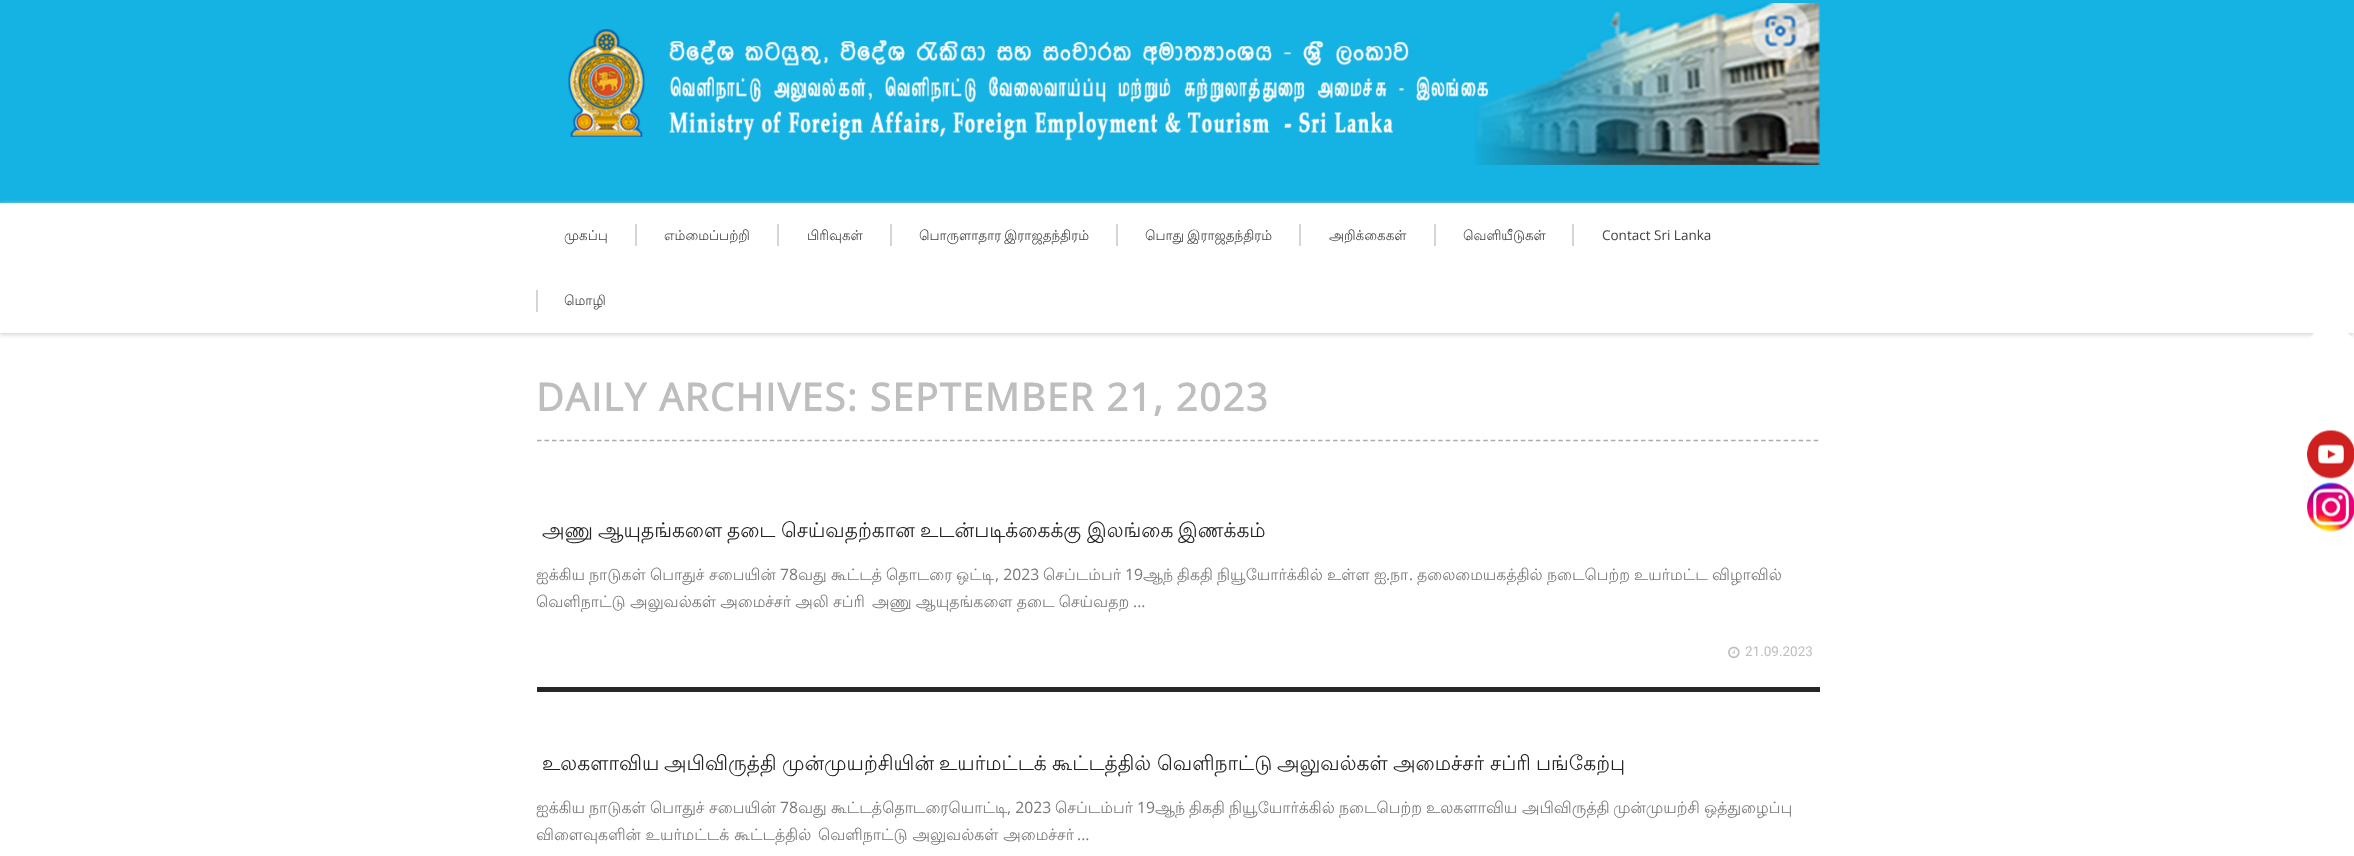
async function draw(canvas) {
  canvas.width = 2354;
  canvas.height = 856;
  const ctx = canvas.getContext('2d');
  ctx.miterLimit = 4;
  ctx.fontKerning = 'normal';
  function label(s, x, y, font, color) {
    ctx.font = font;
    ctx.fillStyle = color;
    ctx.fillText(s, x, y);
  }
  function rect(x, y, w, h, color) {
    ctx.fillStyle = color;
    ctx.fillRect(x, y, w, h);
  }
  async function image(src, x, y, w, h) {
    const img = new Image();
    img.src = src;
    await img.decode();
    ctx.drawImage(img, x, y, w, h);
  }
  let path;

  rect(0, 0, 2354, 856, '#fff');
  rect(0, 0, 2354, 203, '#14b3e3');
  await image('assets/img1.png', 568, 3, 1252, 162);
  ctx.fillStyle = '#d8d8d8';
  ctx.filter = 'blur(2px)';
  ctx.beginPath();
  ctx.rect(0, 204, 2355, 131);
  ctx.fill();
  ctx.filter = 'none';
  rect(0, 203, 2354, 130, '#fff');
  label('முகப்பு', 564, 240, '13.5px Lohit Tamil', '#424246');
  rect(635, 224, 2, 22, '#d5d5d6');
  label('எம்மைப்பற்றி', 664, 240, '13.5px Lohit Tamil', '#424246');
  rect(777, 224, 2, 22, '#d5d5d6');
  label('பிரிவுகள்', 807, 240, '13.5px Lohit Tamil', '#424246');
  rect(890, 224, 2, 22, '#d5d5d6');
  ctx.wordSpacing = '-1px';
  label('பொருளாதார இராஜதந்திரம்', 919, 240, '13.5px Lohit Tamil', '#424246');
  rect(1116, 224, 2, 22, '#d5d5d6');
  label('பொது இராஜதந்திரம்', 1145, 240, '13.5px Lohit Tamil', '#424246');
  rect(1299, 224, 2, 22, '#d5d5d6');
  ctx.wordSpacing = '0px';
  label('அறிக்கைகள்', 1329, 240, '13.5px Lohit Tamil', '#424246');
  rect(1434, 224, 2, 22, '#d5d5d6');
  label('வெளியீடுகள்', 1463, 240, '13.5px Lohit Tamil', '#424246');
  rect(1572, 224, 2, 22, '#d5d5d6');
  label('Contact Sri Lanka', 1602, 240, '13.5px Open Sans', '#424246');
  rect(536, 290, 2, 22, '#d5d5d6');
  label('மொழி', 564, 305, '13.5px Lohit Tamil', '#424246');
  path = new Path2D('M537 440.5H1819.5');
  ctx.strokeStyle = '#ababab';
  ctx.lineWidth = 1.5;
  ctx.setLineDash([4.5, 3.01]);
  ctx.stroke(path);
  ctx.letterSpacing = '1.5px';
  label('DAILY ARCHIVES: SEPTEMBER 21, 2023', 536, 411, 'bold 38.25px Open Sans', '#bebebe');
  rect(537, 687, 1283, 5, '#262626');
  ctx.letterSpacing = '0px';
  label('அணு', 542, 537, '20.25px Lohit Tamil', '#222');
  label('ஆயுதங்களை', 598, 537, '20.25px Lohit Tamil', '#222');
  label('தடை', 727, 537, '20.25px Lohit Tamil', '#222');
  label('செய்வதற்கான', 781, 537, '20.25px Lohit Tamil', '#222');
  label('உடன்படிக்கைக்கு', 920, 537, '20.25px Lohit Tamil', '#222');
  label('இலங்கை', 1087, 537, '20.25px Lohit Tamil', '#222');
  label('இணக்கம்', 1178, 537, '20.25px Lohit Tamil', '#222');
  label('ஐக்கிய', 536, 580, '15.75px Lohit Tamil', '#777');
  label('நாடுகள்', 589, 580, '15.75px Lohit Tamil', '#777');
  label('பொதுச்', 650, 580, '15.75px Lohit Tamil', '#777');
  label('சபையின்', 709, 580, '15.75px Lohit Tamil', '#777');
  label('78', 780, 580, '15.75px Open Sans', '#777');
  label('வது', 798, 580, '15.75px Lohit Tamil', '#777');
  label('கூட்டத்', 831, 580, '15.75px Lohit Tamil', '#777');
  label('தொடரை', 886, 580, '15.75px Lohit Tamil', '#777');
  label('ஒட்டி', 956, 580, '15.75px Lohit Tamil', '#777');
  label(', 2023', 995, 580, '15.75px Open Sans', '#777');
  label('செப்டம்பர்', 1043, 580, '15.75px Lohit Tamil', '#777');
  label('19', 1125, 580, '15.75px Open Sans', '#777');
  label('ஆந்', 1143, 580, '15.75px Lohit Tamil', '#777');
  label('திகதி', 1177, 580, '15.75px Lohit Tamil', '#777');
  label('நியூயோர்க்கில்', 1217, 580, '15.75px Lohit Tamil', '#777');
  label('உள்ள', 1327, 580, '15.75px Lohit Tamil', '#777');
  label('ஐ', 1374, 580, '15.75px Lohit Tamil', '#777');
  label('.', 1386, 580, '15.75px Open Sans', '#777');
  label('நா', 1390, 580, '15.75px Lohit Tamil', '#777');
  label('.', 1409, 580, '15.75px Open Sans', '#777');
  label('தலைமையகத்தில்', 1417, 580, '15.75px Lohit Tamil', '#777');
  label('நடைபெற்ற', 1547, 580, '15.75px Lohit Tamil', '#777');
  label('உயர்மட்ட', 1634, 580, '15.75px Lohit Tamil', '#777');
  label('விழாவில்', 1712, 580, '15.75px Lohit Tamil', '#777');
  ctx.wordSpacing = '-0.5px';
  label('வெளிநாட்டு அலுவல்கள் அமைச்சர் அலி சப்ரி', 536, 607, '15.75px Lohit Tamil', '#777');
  label('அணு ஆயுதங்களை தடை செய்வதற', 872, 607, '15.75px Lohit Tamil', '#777');
  ctx.wordSpacing = '0px';
  label('...', 1133, 607, '15.75px Open Sans', '#777');
  await image('assets/img2.png', 1728, 646, 12, 13);
  label('21.09.2023', 1745, 656, '13.5px Roboto', '#bebebe');
  label('உலகளாவிய', 542, 770, '20.25px Lohit Tamil', '#222');
  label('அபிவிருத்தி', 664, 770, '20.25px Lohit Tamil', '#222');
  label('முன்முயற்சியின்', 782, 770, '20.25px Lohit Tamil', '#222');
  label('உயர்மட்டக்', 939, 770, '20.25px Lohit Tamil', '#222');
  label('கூட்டத்தில்', 1052, 770, '20.25px Lohit Tamil', '#222');
  label('வெளிநாட்டு', 1157, 770, '20.25px Lohit Tamil', '#222');
  label('அலுவல்கள்', 1277, 770, '20.25px Lohit Tamil', '#222');
  label('அமைச்சர்', 1393, 770, '20.25px Lohit Tamil', '#222');
  label('சப்ரி', 1490, 770, '20.25px Lohit Tamil', '#222');
  label('பங்கேற்பு', 1536, 770, '20.25px Lohit Tamil', '#222');
  label('ஐக்கிய', 536, 813, '15.75px Lohit Tamil', '#777');
  label('நாடுகள்', 589, 813, '15.75px Lohit Tamil', '#777');
  label('பொதுச்', 650, 813, '15.75px Lohit Tamil', '#777');
  label('சபையின்', 709, 813, '15.75px Lohit Tamil', '#777');
  label('78', 780, 813, '15.75px Open Sans', '#777');
  label('வது', 798, 813, '15.75px Lohit Tamil', '#777');
  label('கூட்டத்தொடரையொட்டி', 831, 813, '15.75px Lohit Tamil', '#777');
  label(', 2023', 1007, 813, '15.75px Open Sans', '#777');
  label('செப்டம்பர்', 1055, 813, '15.75px Lohit Tamil', '#777');
  label('19', 1137, 813, '15.75px Open Sans', '#777');
  label('ஆந்', 1155, 813, '15.75px Lohit Tamil', '#777');
  label('திகதி', 1189, 813, '15.75px Lohit Tamil', '#777');
  label('நியூயோர்க்கில்', 1229, 813, '15.75px Lohit Tamil', '#777');
  label('நடைபெற்ற', 1339, 813, '15.75px Lohit Tamil', '#777');
  label('உலகளாவிய', 1426, 813, '15.75px Lohit Tamil', '#777');
  label('அபிவிருத்தி', 1522, 813, '15.75px Lohit Tamil', '#777');
  label('முன்முயற்சி', 1613, 813, '15.75px Lohit Tamil', '#777');
  label('ஒத்துழைப்பு', 1704, 813, '15.75px Lohit Tamil', '#777');
  label('விளைவுகளின் உயர்மட்டக் கூட்டத்தில்', 536, 840, '15.75px Lohit Tamil', '#777');
  label('வெளிநாட்டு அலுவல்கள் அமைச்சர்', 818, 840, '15.75px Lohit Tamil', '#777');
  label('...', 1077, 840, '15.75px Open Sans', '#777');
  ctx.fillStyle = '#fff';
  ctx.beginPath();
  ctx.arc(2331, 350, 24, 0, 2 * Math.PI);
  ctx.fill();
  await image('assets/img3.png', 2307, 430, 47, 49);
  await image('assets/img4.png', 2307, 482, 47, 50);
}

draw(document.querySelector('canvas'));
